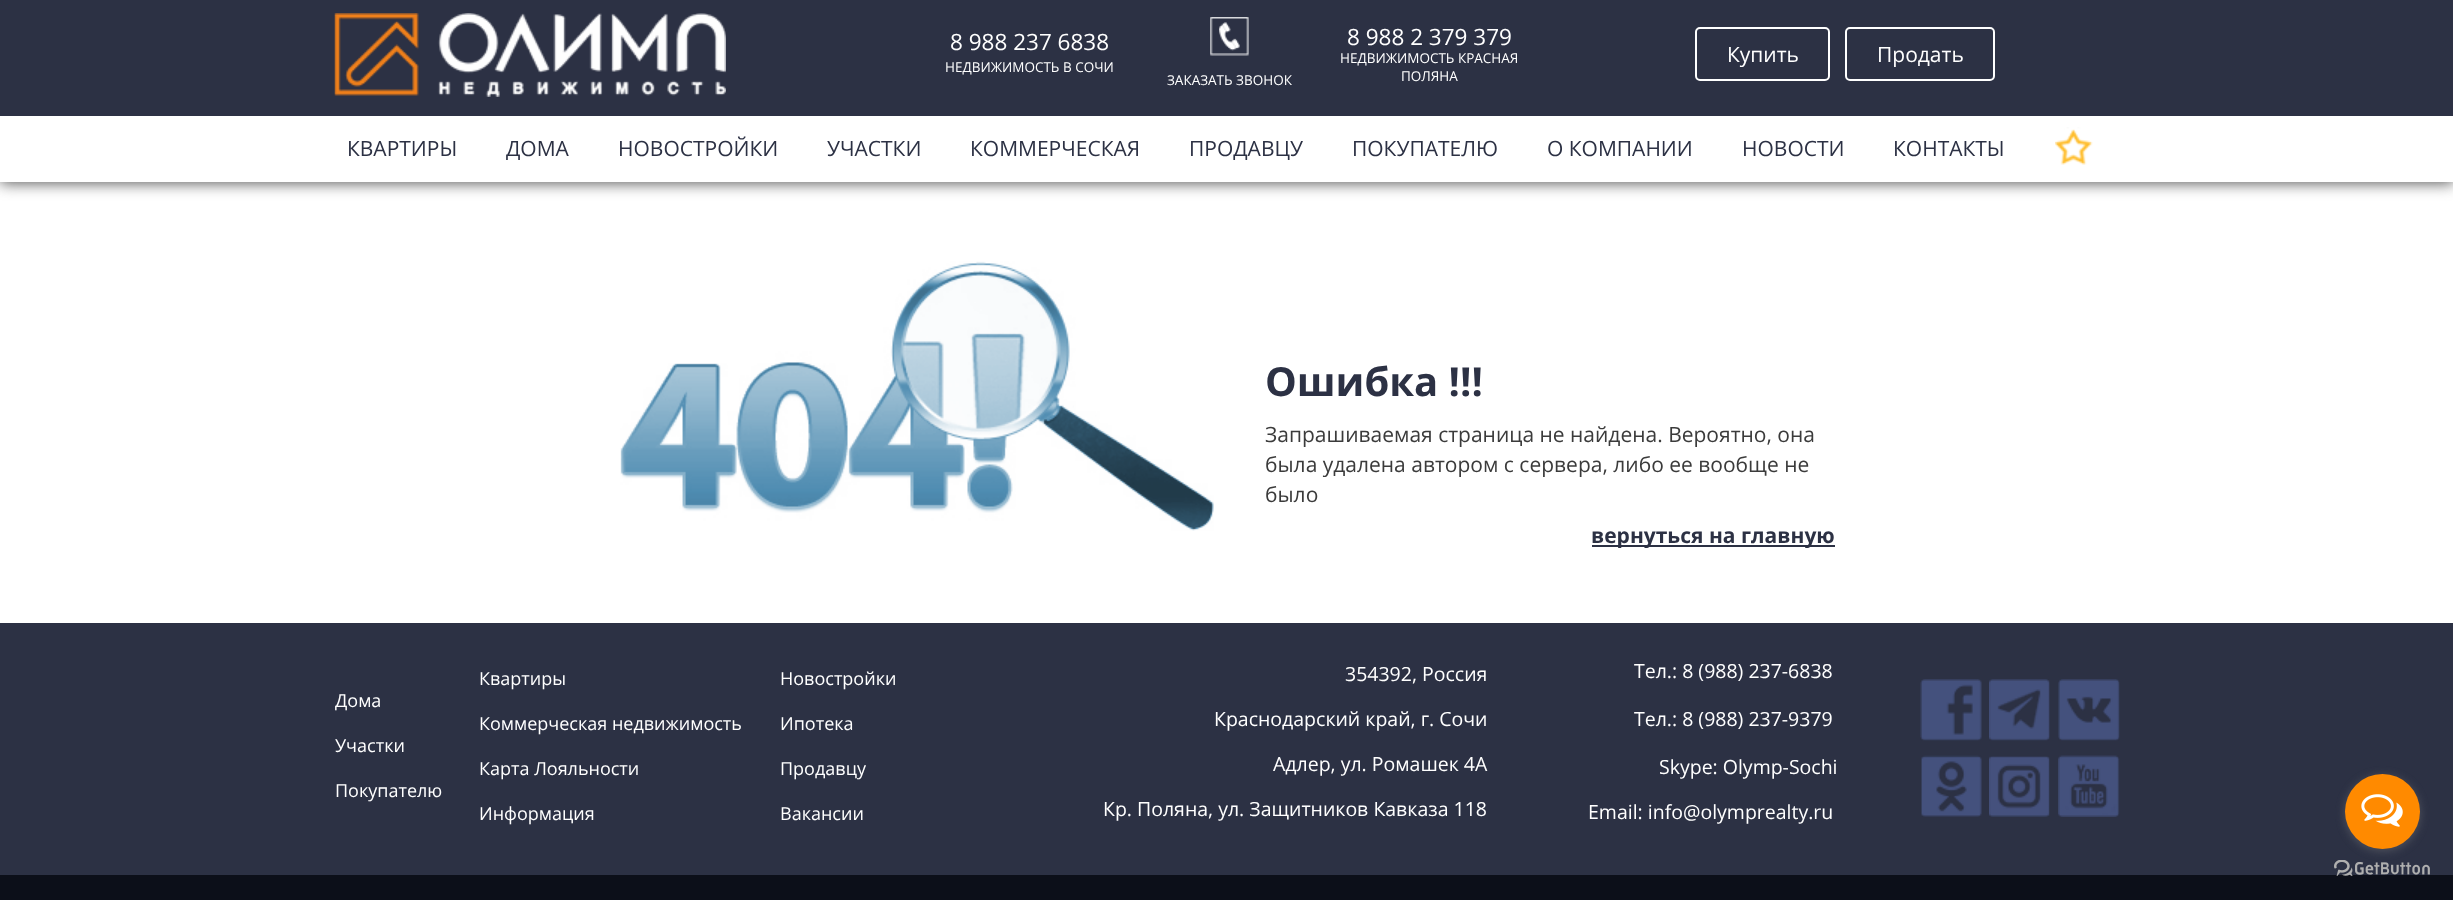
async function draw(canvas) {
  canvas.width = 2453;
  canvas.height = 900;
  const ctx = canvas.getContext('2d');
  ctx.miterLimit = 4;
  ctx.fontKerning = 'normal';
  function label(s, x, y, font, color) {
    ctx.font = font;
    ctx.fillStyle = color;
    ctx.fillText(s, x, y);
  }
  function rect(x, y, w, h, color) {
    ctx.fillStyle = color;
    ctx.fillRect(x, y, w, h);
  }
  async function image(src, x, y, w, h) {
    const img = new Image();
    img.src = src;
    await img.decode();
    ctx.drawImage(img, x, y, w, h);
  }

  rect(0, 0, 2453, 900, '#fff');
  ctx.fillStyle = '#515151';
  ctx.filter = 'blur(7.5px)';
  ctx.beginPath();
  ctx.rect(0, -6, 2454, 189);
  ctx.fill();
  ctx.filter = 'none';
  rect(0, 0, 2453, 116, '#2c3144');
  await image('assets/img1.png', 334, 13, 392, 84);
  label('8 988 237 6838', 950, 50, '22.5px Open Sans', '#fff');
  label('НЕДВИЖИМОСТЬ В СОЧИ', 945, 72, '13.5px Open Sans', '#fff');
  label('8 988 2 379 379', 1347, 45, '22.5px Open Sans', '#fff');
  label('НЕДВИЖИМОСТЬ КРАСНАЯ', 1340, 63, '13.5px Open Sans', '#fff');
  label('ПОЛЯНА', 1401, 81, '13.5px Open Sans', '#fff');
  await image('assets/img2.png', 1210, 17, 39, 39);
  label('ЗАКАЗАТЬ ЗВОНОК', 1167, 85, '13.5px Open Sans', '#fff');
  ctx.beginPath();
  ctx.roundRect(1696, 28, 133, 52, 4);
  ctx.strokeStyle = '#fff';
  ctx.lineWidth = 2;
  ctx.stroke();
  label('Купить', 1727, 62, '21px Open Sans', '#fff');
  ctx.beginPath();
  ctx.roundRect(1846, 28, 148, 52, 4);
  ctx.stroke();
  label('Продать', 1877, 62, '21px Open Sans', '#fff');
  rect(0, 116, 2453, 66, '#fff');
  label('КВАРТИРЫ', 347, 156, '21px Open Sans', '#2c3144');
  label('ДОМА', 506, 156, '21px Open Sans', '#2c3144');
  label('НОВОСТРОЙКИ', 618, 156, '21px Open Sans', '#2c3144');
  label('УЧАСТКИ', 827, 156, '21px Open Sans', '#2c3144');
  label('КОММЕРЧЕСКАЯ', 970, 156, '21px Open Sans', '#2c3144');
  label('ПРОДАВЦУ', 1189, 156, '21px Open Sans', '#2c3144');
  label('ПОКУПАТЕЛЮ', 1352, 156, '21px Open Sans', '#2c3144');
  label('О КОМПАНИИ', 1547, 156, '21px Open Sans', '#2c3144');
  label('НОВОСТИ', 1742, 156, '21px Open Sans', '#2c3144');
  label('КОНТАКТЫ', 1893, 156, '21px Open Sans', '#2c3144');
  await image('assets/img3.png', 2055, 127, 38, 38);
  await image('assets/img4.png', 620, 261, 594, 270);
  label('Ошибка !!!', 1265, 396, 'bold 40px Open Sans', '#2c3144');
  label('Запрашиваемая страница не найдена. Вероятно, она', 1265, 442, '21px Open Sans', '#3b3b3b');
  label('была удалена автором с сервера, либо ее вообще не', 1265, 472, '21px Open Sans', '#3b3b3b');
  label('было', 1265, 502, '21px Open Sans', '#3b3b3b');
  rect(1592, 545, 243, 2, '#2c3144');
  label('вернуться на главную', 1591, 543, 'bold 21px Open Sans', '#2c3144');
  rect(0, 623, 2453, 252, '#2c3144');
  ctx.save();
  ctx.beginPath();
  ctx.rect(335, 623, 1785, 252);
  ctx.clip();
  label('Дома', 335, 707, '18px Open Sans', '#fff');
  ctx.restore();
  label('Участки', 335, 752, '18px Open Sans', '#fff');
  label('Покупателю', 335, 797, '18px Open Sans', '#fff');
  label('Квартиры', 479, 685, '18px Open Sans', '#fff');
  label('Коммерческая недвижимость', 479, 730, '18px Open Sans', '#fff');
  label('Карта Лояльности', 479, 775, '18px Open Sans', '#fff');
  label('Информация', 479, 820, '18px Open Sans', '#fff');
  label('Новостройки', 780, 685, '18px Open Sans', '#fff');
  label('Ипотека', 780, 730, '18px Open Sans', '#fff');
  label('Продавцу', 780, 775, '18px Open Sans', '#fff');
  label('Вакансии', 780, 820, '18px Open Sans', '#fff');
  label('354392, Россия', 1345, 681, '19.5px Open Sans', '#fff');
  label('Краснодарский край, г. Сочи', 1214, 726, '19.5px Open Sans', '#fff');
  label('Адлер, ул. Ромашек 4А', 1273, 771, '19.5px Open Sans', '#fff');
  label('Кр. Поляна, ул. Защитников Кавказа 118', 1103, 816, '19.5px Open Sans', '#fff');
  label('Тел.: 8 (988) 237-6838', 1634, 678, '19.5px Open Sans', '#fff');
  label('Тел.: 8 (988) 237-9379', 1634, 726, '19.5px Open Sans', '#fff');
  label('Skype: Olymp-Sochi', 1659, 774, '19.5px Open Sans', '#fff');
  label('Email: info@olymprealty.ru', 1588, 819, '19.5px Open Sans', '#fff');
  await image('assets/img5.png', 1920, 679, 62, 62);
  await image('assets/img6.png', 1989, 679, 61, 62);
  await image('assets/img7.png', 2058, 679, 62, 62);
  await image('assets/img8.png', 1921, 755, 61, 62);
  await image('assets/img9.png', 1989, 756, 61, 61);
  await image('assets/img10.png', 2058, 755, 62, 62);
  rect(0, 875, 2453, 25, '#0c0f19');
  await image('assets/img12.png', 2334, 860, 96, 16);
  ctx.fillStyle = '#88888866';
  ctx.filter = 'blur(5px)';
  ctx.beginPath();
  ctx.roundRect(2345, 776, 75, 75, 37.5);
  ctx.fill();
  ctx.filter = 'none';
  ctx.fillStyle = '#ff8a00';
  ctx.beginPath();
  ctx.arc(2382.5, 811.5, 37.5, 0, 2 * Math.PI);
  ctx.fill();
  await image('assets/img11.png', 2361, 794, 42, 33);
}

draw(document.querySelector('canvas'));
